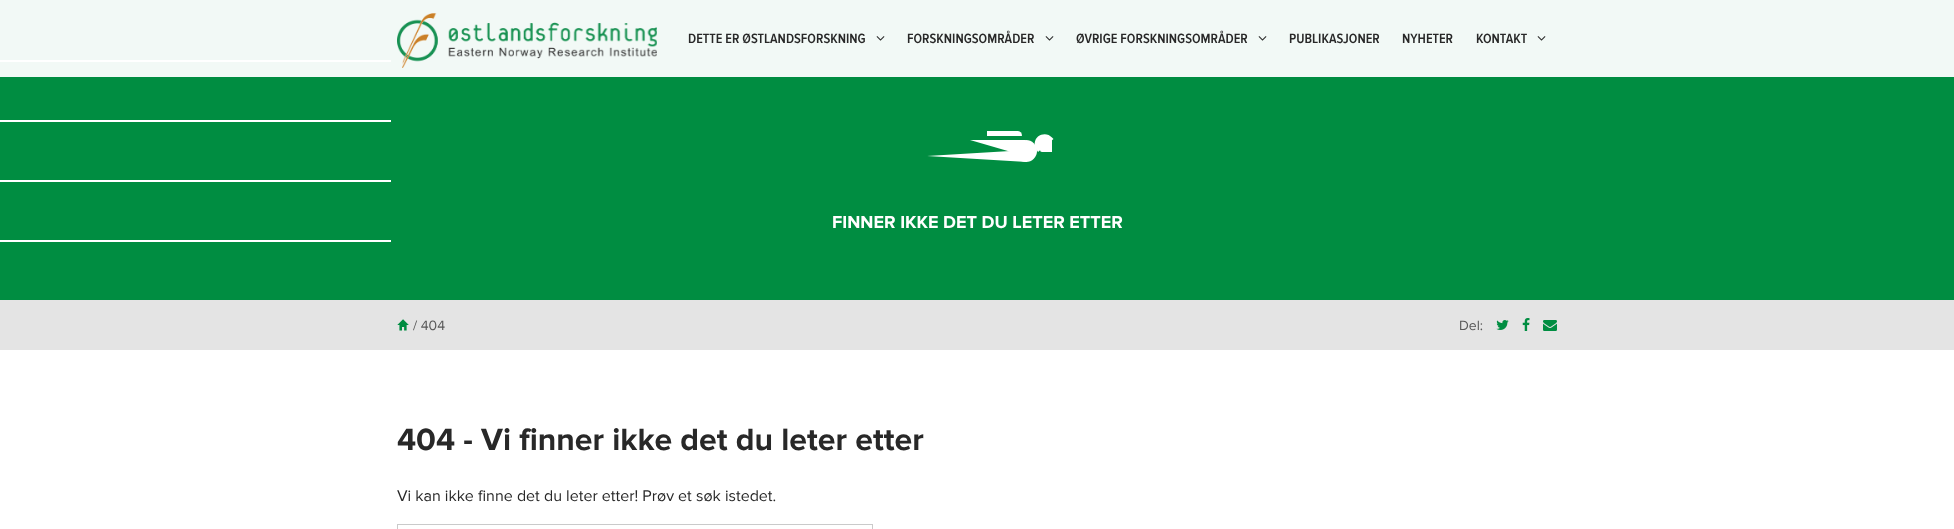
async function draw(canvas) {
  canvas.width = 1954;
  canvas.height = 529;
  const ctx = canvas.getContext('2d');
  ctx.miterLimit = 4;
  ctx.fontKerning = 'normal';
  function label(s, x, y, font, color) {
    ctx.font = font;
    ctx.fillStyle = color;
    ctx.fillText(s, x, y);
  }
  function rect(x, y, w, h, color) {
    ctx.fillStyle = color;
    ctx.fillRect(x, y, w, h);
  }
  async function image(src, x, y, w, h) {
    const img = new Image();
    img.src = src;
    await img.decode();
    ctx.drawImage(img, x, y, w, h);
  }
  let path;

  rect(0, 0, 1954, 529, '#fff');
  rect(0, 0, 1954, 77, '#f2f9f6');
  await image('assets/img1.png', 397, 13, 260, 55);
  label('DETTE ER ØSTLANDSFORSKNING', 688, 43, '600 14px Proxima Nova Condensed', '#282828');
  await image('assets/img2.png', 876, 36, 9, 5);
  label('FORSKNINGSOMRÅDER', 907, 43, '600 14px Proxima Nova Condensed', '#282828');
  await image('assets/img2.png', 1045, 36, 9, 5);
  label('ØVRIGE FORSKNINGSOMRÅDER', 1076, 43, '600 14px Proxima Nova Condensed', '#282828');
  await image('assets/img2.png', 1258, 36, 9, 5);
  label('PUBLIKASJONER', 1289, 43, '600 14px Proxima Nova Condensed', '#282828');
  label('NYHETER', 1402, 43, '600 14px Proxima Nova Condensed', '#282828');
  label('KONTAKT', 1476, 43, '600 14px Proxima Nova Condensed', '#282828');
  await image('assets/img2.png', 1537, 36, 9, 5);
  rect(0, 77, 1954, 223, '#008d41');
  rect(0, 60, 391, 2, '#fff');
  rect(0, 120, 391, 2, '#fff');
  rect(0, 180, 391, 2, '#fff');
  rect(0, 240, 391, 2, '#fff');
  ctx.beginPath();
  ctx.roundRect(987, 131, 35, 5, [0.91, 4.55, 0.45, 0]);
  ctx.fill();
  rect(987, 131, 1, 1, '#fff');
  path = new Path2D('M1027 150V162L927 156Z');
  ctx.fill(path);
  path = new Path2D('M1025 140V156L970 140Z');
  ctx.fill(path);
  ctx.beginPath();
  ctx.arc(1026, 151, 11, 0, 2 * Math.PI);
  ctx.fill();
  path = new Path2D('M1038 136.5C1042.5 133 1048.5 133.5 1052 137.5L1053.5 139L1038 152L1037 150.5C1033.5 146.5 1034 140 1038 136.5Z');
  ctx.fill(path);
  ctx.beginPath();
  ctx.roundRect(1040, 140, 12, 12, [0, 0, 0, 2]);
  ctx.fill();
  label('FINNER IKKE DET DU LETER ETTER', 832, 228, 'bold 18px Proxima Nova', '#fff');
  rect(0, 300, 1954, 50, '#e4e4e4');
  label('H', 397, 329, '14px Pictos', '#008d41');
  label('/ 404', 413, 330, '14px Proxima Nova', '#585858');
  label('Del:', 1459, 330, '14px Proxima Nova', '#585858');
  await image('assets/img3.png', 1496, 320, 13, 10);
  await image('assets/img4.png', 1522, 318, 8, 13);
  await image('assets/img5.png', 1543, 320, 14, 11);
  label('404 - Vi finner ikke det du leter etter', 397, 450, 'bold 32px Proxima Nova', '#282828');
  label('Vi kan ikke finne det du leter etter! Prøv et søk istedet.', 397, 501, '16px Proxima Nova', '#282828');
  ctx.strokeStyle = '#cacaca';
  ctx.strokeRect(397.5, 524.5, 475, 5);
}

draw(document.querySelector('canvas'));
